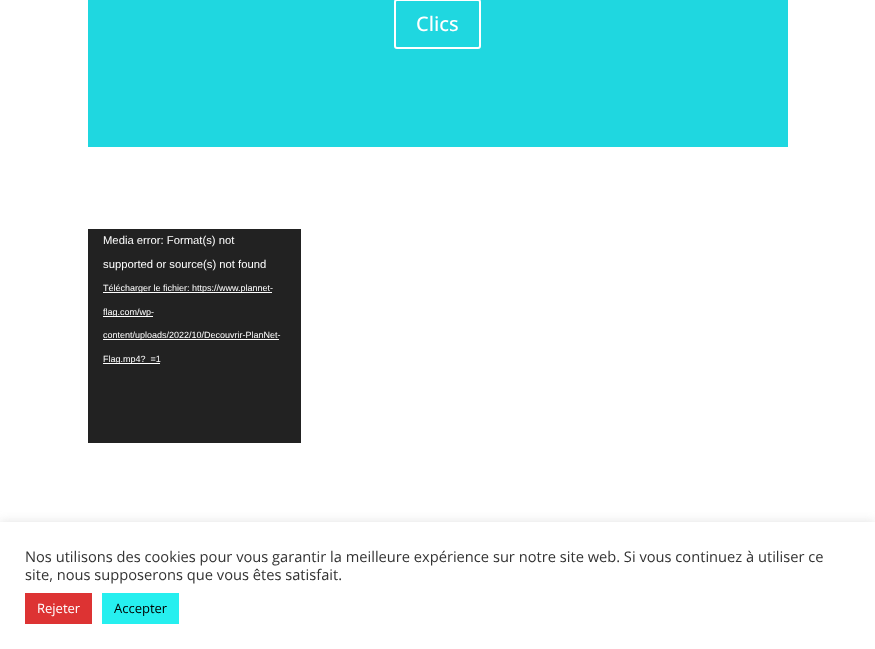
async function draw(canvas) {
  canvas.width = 875;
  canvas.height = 649;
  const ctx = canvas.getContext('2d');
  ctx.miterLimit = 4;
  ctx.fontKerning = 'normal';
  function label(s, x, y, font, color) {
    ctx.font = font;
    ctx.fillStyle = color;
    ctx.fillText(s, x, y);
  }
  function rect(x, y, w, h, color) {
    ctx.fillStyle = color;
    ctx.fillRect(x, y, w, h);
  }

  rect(0, 0, 875, 649, '#fff');
  rect(88, 0, 700, 147, '#1fd7e0');
  ctx.beginPath();
  ctx.roundRect(395, 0, 85, 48, 2);
  ctx.strokeStyle = '#fff';
  ctx.lineWidth = 2;
  ctx.stroke();
  label('Clics', 416, 31, '500 20px Open Sans', '#fff');
  rect(88, 229, 213, 214, '#222');
  label('Media error: Format(s) not', 103, 244, '11.25px Liberation Sans', '#fff');
  label('supported or source(s) not found', 103, 268, '11.25px Liberation Sans', '#fff');
  rect(103, 292, 169, 1, '#fff');
  label('Télécharger le fichier: https://www.plannet-', 103, 291, '9px Liberation Sans', '#fff');
  rect(103, 316, 50, 1, '#fff');
  label('flag.com/wp-', 103, 315, '9px Liberation Sans', '#fff');
  rect(103, 339, 176, 1, '#fff');
  label('content/uploads/2022/10/Decouvrir-PlanNet-', 103, 338, '9px Liberation Sans', '#fff');
  rect(103, 363, 57, 1, '#fff');
  label('Flag.mp4?_=1', 103, 362, '9px Liberation Sans', '#fff');
  ctx.fillStyle = '#acabab4d';
  ctx.filter = 'blur(5px)';
  ctx.beginPath();
  ctx.rect(0, 521, 875, 127);
  ctx.fill();
  ctx.filter = 'none';
  rect(0, 522, 875, 127, '#fff');
  label('Nos utilisons des cookies pour vous garantir la meilleure expérience sur notre site web. Si vous continuez à utiliser ce', 25, 562, '14.67px Open Sans', '#333');
  label('site, nous supposerons que vous êtes satisfait.', 25, 580, '14.67px Open Sans', '#333');
  rect(25, 593, 67, 31, '#d33');
  label('Rejeter', 37, 613, '13px Open Sans', '#fff');
  rect(102, 593, 77, 31, '#26efef');
  label('Accepter', 114, 613, '13px Open Sans', '#000');
}

draw(document.querySelector('canvas'));
